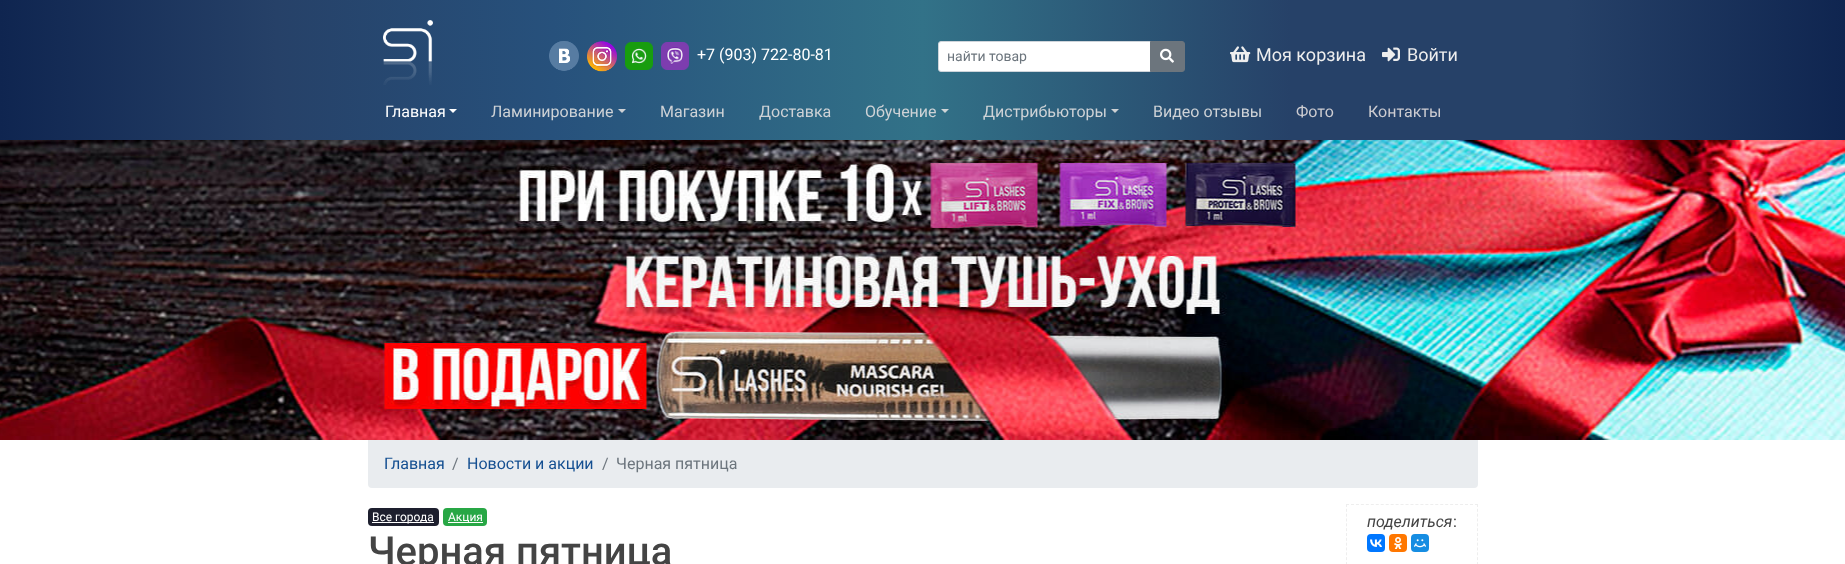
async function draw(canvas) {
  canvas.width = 1845;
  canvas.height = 564;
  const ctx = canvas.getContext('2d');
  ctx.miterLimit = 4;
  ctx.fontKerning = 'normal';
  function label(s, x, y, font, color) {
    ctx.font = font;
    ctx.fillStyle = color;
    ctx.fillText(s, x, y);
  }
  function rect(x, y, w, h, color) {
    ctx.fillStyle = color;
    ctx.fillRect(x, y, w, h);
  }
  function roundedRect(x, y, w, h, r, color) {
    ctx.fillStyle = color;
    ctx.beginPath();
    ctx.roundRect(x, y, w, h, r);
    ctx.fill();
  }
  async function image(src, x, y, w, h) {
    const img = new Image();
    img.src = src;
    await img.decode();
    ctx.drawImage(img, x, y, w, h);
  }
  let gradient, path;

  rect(0, 0, 1845, 564, '#fff');
  gradient = ctx.createLinearGradient(0, 70, 1845, 70);
  gradient.addColorStop(0, '#0f2550');
  gradient.addColorStop(0.15, '#264168');
  gradient.addColorStop(0.3, '#27517c');
  gradient.addColorStop(0.5, '#327288');
  gradient.addColorStop(0.7, '#264168');
  gradient.addColorStop(0.85, '#264168');
  gradient.addColorStop(1, '#0f2550');
  ctx.fillStyle = gradient;
  ctx.fillRect(0, 0, 1845, 140);
  await image('assets/img1.png', 383, 20, 50, 65);
  await image('assets/img2.png', 549, 41, 30, 30);
  await image('assets/img3.png', 587, 41, 30, 31);
  await image('assets/img4.png', 625, 42, 28, 28);
  await image('assets/img5.png', 661, 42, 28, 28);
  label('+7 (903) 722-80-81', 697, 60, '16px Roboto', '#fff');
  ctx.beginPath();
  ctx.roundRect(938.5, 41.5, 212, 30, [2.5, 0, 0, 2.5]);
  ctx.fill();
  ctx.strokeStyle = '#ced4da';
  ctx.stroke();
  label('найти товар', 947, 61, '14px Roboto', '#6c757d');
  ctx.beginPath();
  ctx.roundRect(1150.5, 41.5, 34, 30, [0, 2.5, 2.5, 0]);
  ctx.fill();
  ctx.strokeStyle = '#6c757d';
  ctx.stroke();
  await image('assets/img6.png', 1160, 48, 14, 15);
  await image('assets/img7.png', 1230, 46, 21, 17);
  label('Моя корзина', 1256, 61, '18px Roboto', '#eee');
  await image('assets/img8.png', 1382, 47, 18, 15);
  label('Войти', 1407, 61, '18px Roboto', '#eee');
  label('Главная', 385, 117, '16px Roboto', '#fff');
  path = new Path2D('M449 109H457L453 113Z');
  ctx.fill(path);
  label('Ламинирование', 491, 117, '16px Roboto', '#ced2d6');
  ctx.fillStyle = '#ced1d5';
  path = new Path2D('M618 109H626L622 113Z');
  ctx.fill(path);
  label('Магазин', 660, 117, '16px Roboto', '#ced2d6');
  label('Доставка', 759, 117, '16px Roboto', '#ced2d6');
  label('Обучение', 865, 117, '16px Roboto', '#ced2d6');
  ctx.fillStyle = '#cfd5d7';
  path = new Path2D('M941 109H949L945 113Z');
  ctx.fill(path);
  label('Дистрибьюторы', 983, 117, '16px Roboto', '#ced2d6');
  ctx.fillStyle = '#ced1d4';
  path = new Path2D('M1111 109H1119L1115 113Z');
  ctx.fill(path);
  label('Видео отзывы', 1153, 117, '16px Roboto', '#ced2d6');
  label('Фото', 1296, 117, '16px Roboto', '#cdccd1');
  label('Контакты', 1368, 117, '16px Roboto', '#cdccd1');
  await image('assets/img9.png', 0, 140, 1845, 300);
  ctx.fillStyle = '#e9ecef';
  ctx.beginPath();
  ctx.roundRect(368, 440, 1110, 48, [0, 0, 4, 4]);
  ctx.fill();
  label('Главная', 384, 469, '16px Roboto', '#144f91');
  label('/', 452, 469, '16px Roboto', '#6c757d');
  label('Новости и акции', 467, 469, '16px Roboto', '#144f91');
  label('/', 602, 469, '16px Roboto', '#6c757d');
  label('Черная пятница', 616, 469, '16px Roboto', '#6c757d');
  roundedRect(368, 508, 71, 18, 4, '#1d1f2e');
  rect(372, 522, 62, 1, '#fff');
  label('Все города', 372, 521, '12px Roboto', '#fff');
  roundedRect(443, 508, 44, 18, 4, '#28a745');
  rect(448, 522, 35, 1, '#fff');
  label('Акция', 448, 521, '12px Roboto', '#fff');
  path = new Path2D('M1346 504.5H1478');
  ctx.strokeStyle = '#eee';
  ctx.setLineDash([3, 1.96]);
  ctx.stroke(path);
  path = new Path2D('M1477.5 504V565');
  ctx.setLineDash([3, 1.83]);
  ctx.stroke(path);
  path = new Path2D('M1346.5 504V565');
  ctx.stroke(path);
  label('поделиться', 1367, 527, 'italic 16px Roboto', '#444');
  label(':', 1453, 527, '16px Roboto', '#444');
  roundedRect(1367, 534, 18, 18, 4, '#07f');
  await image('assets/img10.png', 1370, 539, 12, 8);
  roundedRect(1389, 534, 18, 18, 4, '#f70');
  await image('assets/img11.png', 1394, 537, 8, 12);
  roundedRect(1411, 534, 18, 18, 4, '#168de2');
  await image('assets/img12.png', 1414, 539, 12, 9);
  label('Черная пятница', 368, 565, '500 40px Roboto', '#444');
}

draw(document.querySelector('canvas'));
